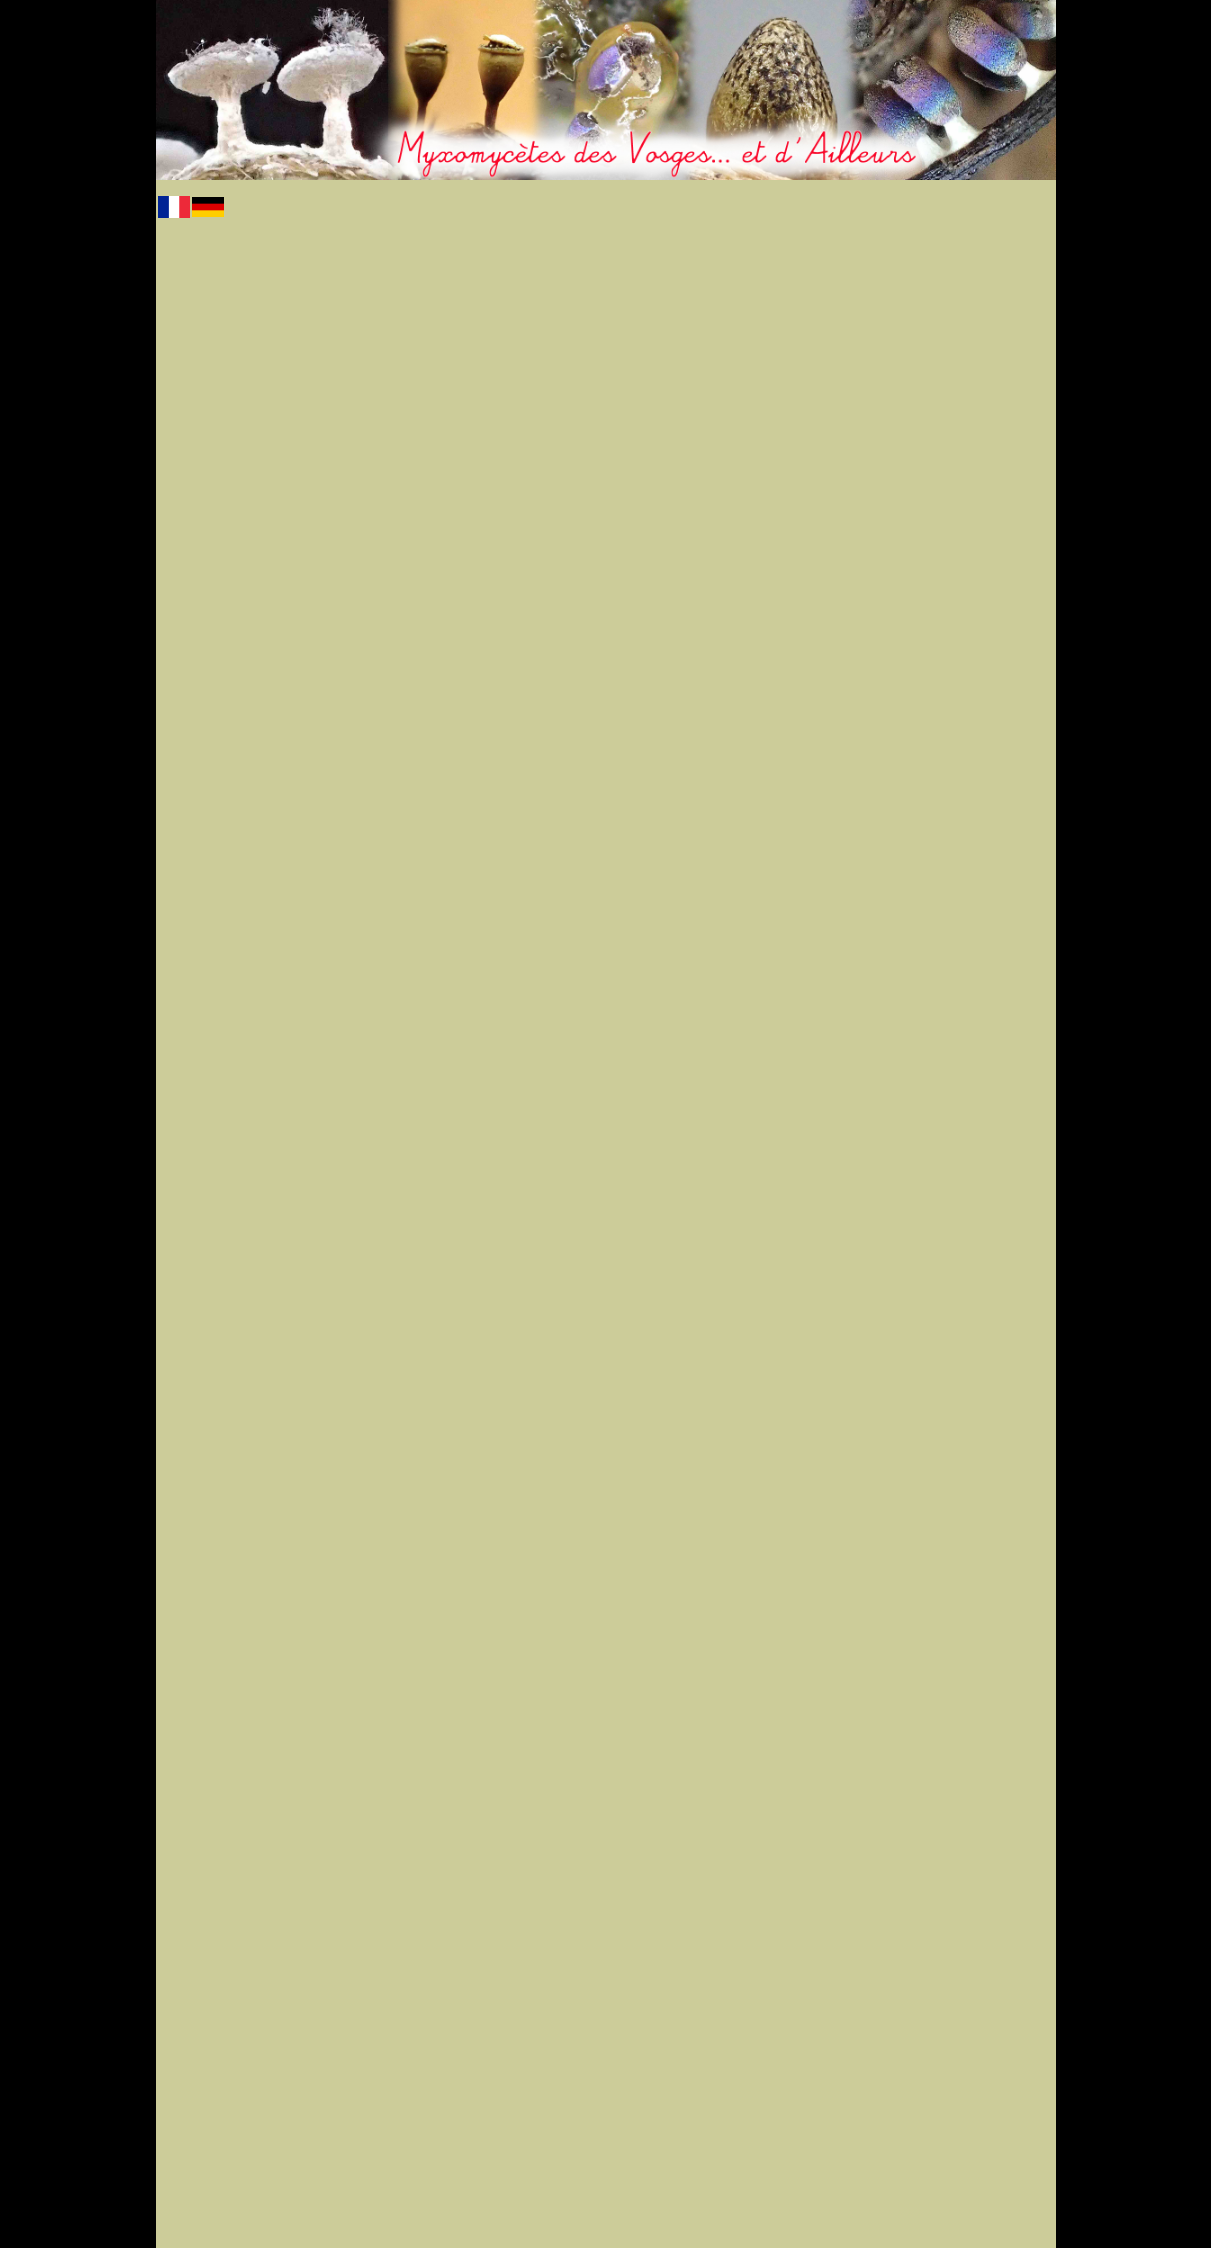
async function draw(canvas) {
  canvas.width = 1211;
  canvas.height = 2248;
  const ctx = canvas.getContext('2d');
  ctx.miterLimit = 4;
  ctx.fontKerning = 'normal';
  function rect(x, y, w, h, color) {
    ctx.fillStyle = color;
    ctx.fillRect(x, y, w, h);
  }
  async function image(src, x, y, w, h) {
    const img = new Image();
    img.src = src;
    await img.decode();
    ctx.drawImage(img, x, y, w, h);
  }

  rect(0, 0, 1211, 2248, '#000');
  rect(156, 180, 900, 2068, '#cc9');
  await image('assets/img1.png', 156, 0, 900, 180);
  await image('assets/img2.png', 158, 196, 32, 22);
  await image('assets/img3.png', 192, 197, 32, 20);
}

draw(document.querySelector('canvas'));
